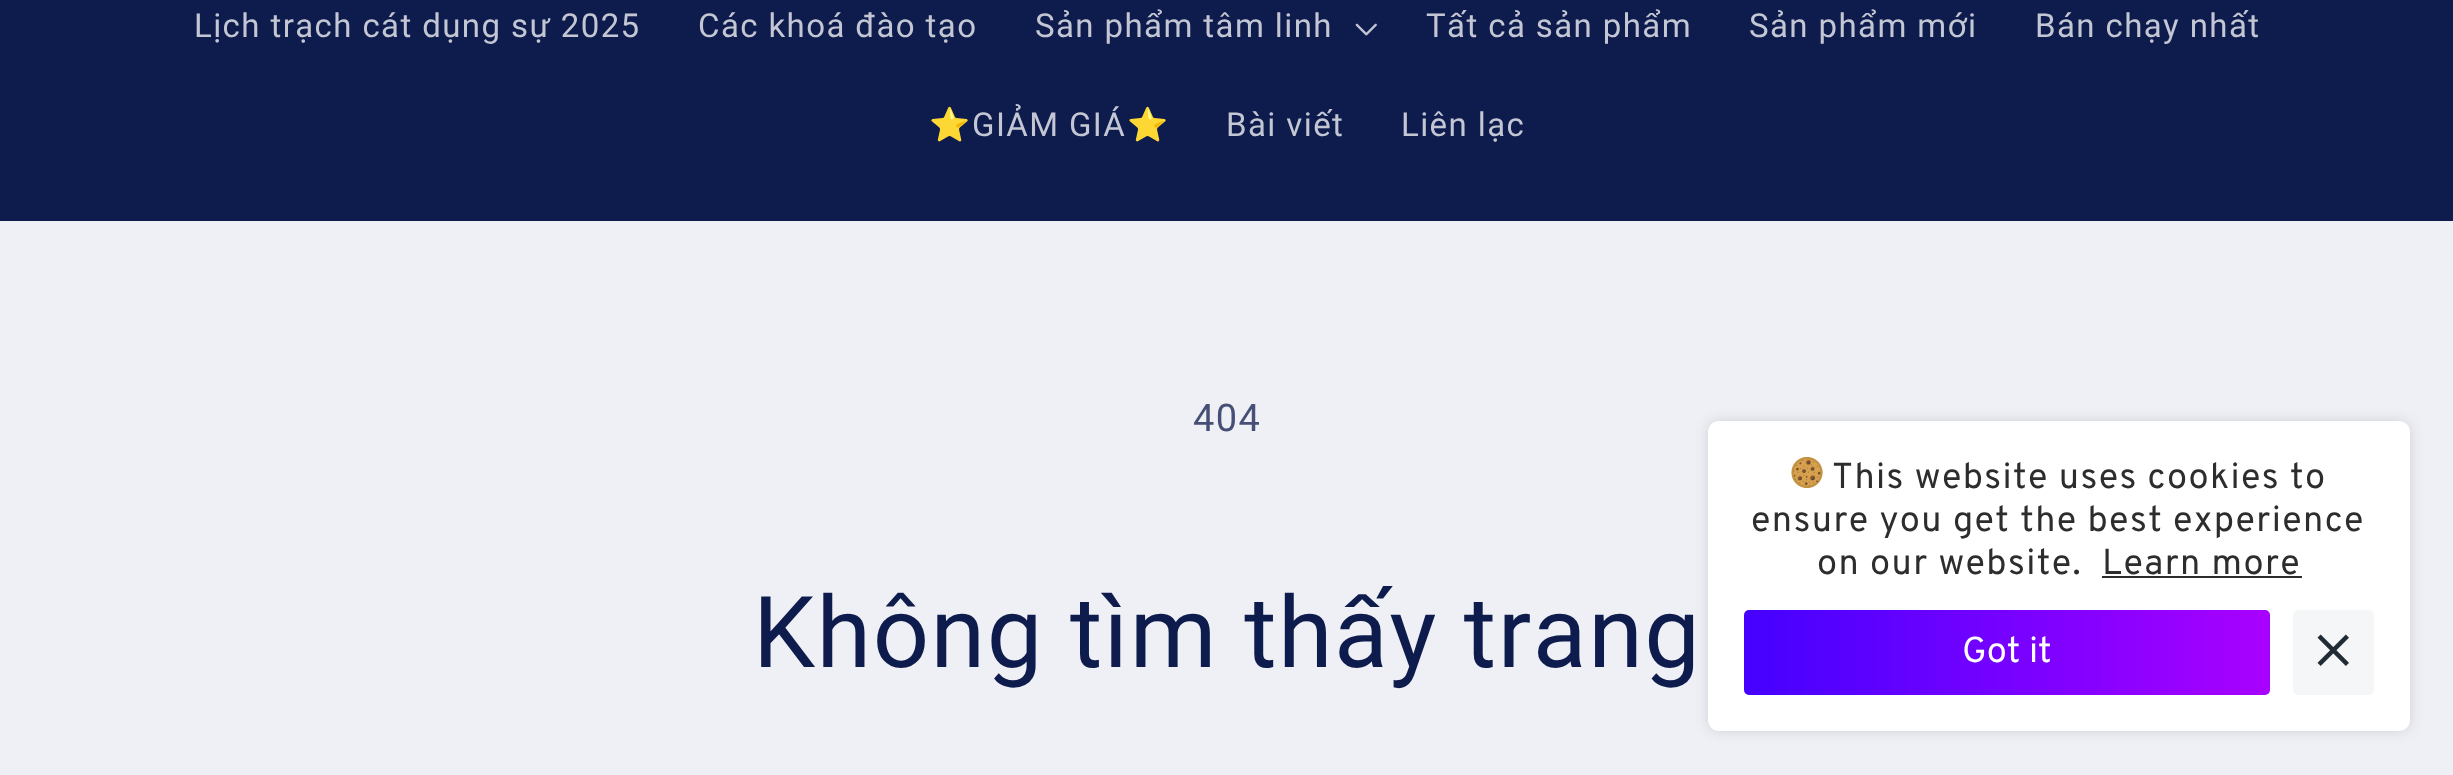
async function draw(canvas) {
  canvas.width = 2453;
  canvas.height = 775;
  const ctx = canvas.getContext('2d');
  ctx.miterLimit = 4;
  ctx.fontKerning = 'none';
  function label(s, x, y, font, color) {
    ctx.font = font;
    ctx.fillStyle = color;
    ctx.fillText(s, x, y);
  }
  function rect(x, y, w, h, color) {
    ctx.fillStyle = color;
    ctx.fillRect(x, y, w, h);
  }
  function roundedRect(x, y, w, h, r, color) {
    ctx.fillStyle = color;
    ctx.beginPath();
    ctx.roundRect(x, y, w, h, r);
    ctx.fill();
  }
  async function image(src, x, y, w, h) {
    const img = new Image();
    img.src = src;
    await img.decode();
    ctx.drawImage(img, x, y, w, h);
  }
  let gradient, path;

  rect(0, 0, 2453, 775, '#eff0f5');
  rect(0, 0, 2453, 221, '#0e1b4d');
  ctx.letterSpacing = '1.4px';
  label('Lịch trạch cát dụng sự 2025', 194, 37, '33px Roboto', '#c3c6d3');
  label('Các khoá đào tạo', 698, 37, '33px Roboto', '#c3c6d3');
  label('Sản phẩm tâm linh', 1035, 37, '33px Roboto', '#c3c6d3');
  await image('assets/img1.png', 1355, 23, 22, 13);
  label('Tất cả sản phẩm', 1426, 37, '33px Roboto', '#c3c6d3');
  label('Sản phẩm mới', 1749, 37, '33px Roboto', '#c3c6d3');
  label('Bán chạy nhất', 2035, 37, '33px Roboto', '#c3c6d3');
  label('⭐', 929, 136, '33px Noto Color Emoji', '#c3c6d3');
  label('GIẢM GIÁ', 972, 136, '33px Roboto', '#c3c6d3');
  label('⭐', 1127, 136, '33px Noto Color Emoji', '#c3c6d3');
  label('Bài viết', 1226, 136, '33px Roboto', '#c3c6d3');
  label('Liên lạc', 1401, 136, '33px Roboto', '#c3c6d3');
  label('404', 1193, 431, '38px Roboto', '#465077');
  ctx.letterSpacing = '1.5px';
  label('Không tìm thấy trang', 753, 667, '99px Roboto', '#0e1b4d');
  roundedRect(1708, 421, 702, 310, 11, '#fff');
  ctx.save();
  path = new Path2D('M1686 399H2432V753H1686ZM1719 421H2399C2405 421 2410 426 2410 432V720C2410 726 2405 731 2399 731H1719C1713 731 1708 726 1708 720V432C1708 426 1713 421 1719 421Z');
  ctx.clip(path, 'evenodd');
  ctx.fillStyle = '#0000001f';
  ctx.filter = 'blur(7px)';
  ctx.beginPath();
  ctx.roundRect(1708, 421, 702, 310, 11);
  ctx.fill();
  ctx.filter = 'none';
  ctx.restore();
  await image('assets/img2.png', 1791, 457, 32, 31);
  ctx.letterSpacing = '1.4px';
  label('This website uses cookies to', 1832, 488, '36px Overpass', '#2d2d2d');
  label('ensure you get the best experience', 1751, 531, '36px Overpass', '#2d2d2d');
  label('on our website.', 1817, 574, '36px Overpass', '#2d2d2d');
  label('Learn more', 2102, 574, '36px Overpass', '#2d2d2d');
  rect(2102, 576, 200, 2, '#2d2d2d');
  gradient = ctx.createLinearGradient(1744, 653, 2270, 653);
  gradient.addColorStop(0, '#4401ff');
  gradient.addColorStop(1, '#a901ff');
  ctx.fillStyle = gradient;
  ctx.beginPath();
  ctx.roundRect(1744, 610, 526, 85, 5);
  ctx.fill();
  ctx.letterSpacing = '0px';
  label('Got it', 1962, 662, '36px Overpass', '#fff');
  roundedRect(2293, 610, 81, 85, 5, '#f4f6f8');
  await image('assets/img3.png', 2317, 634, 32, 32);
}

draw(document.querySelector('canvas'));
